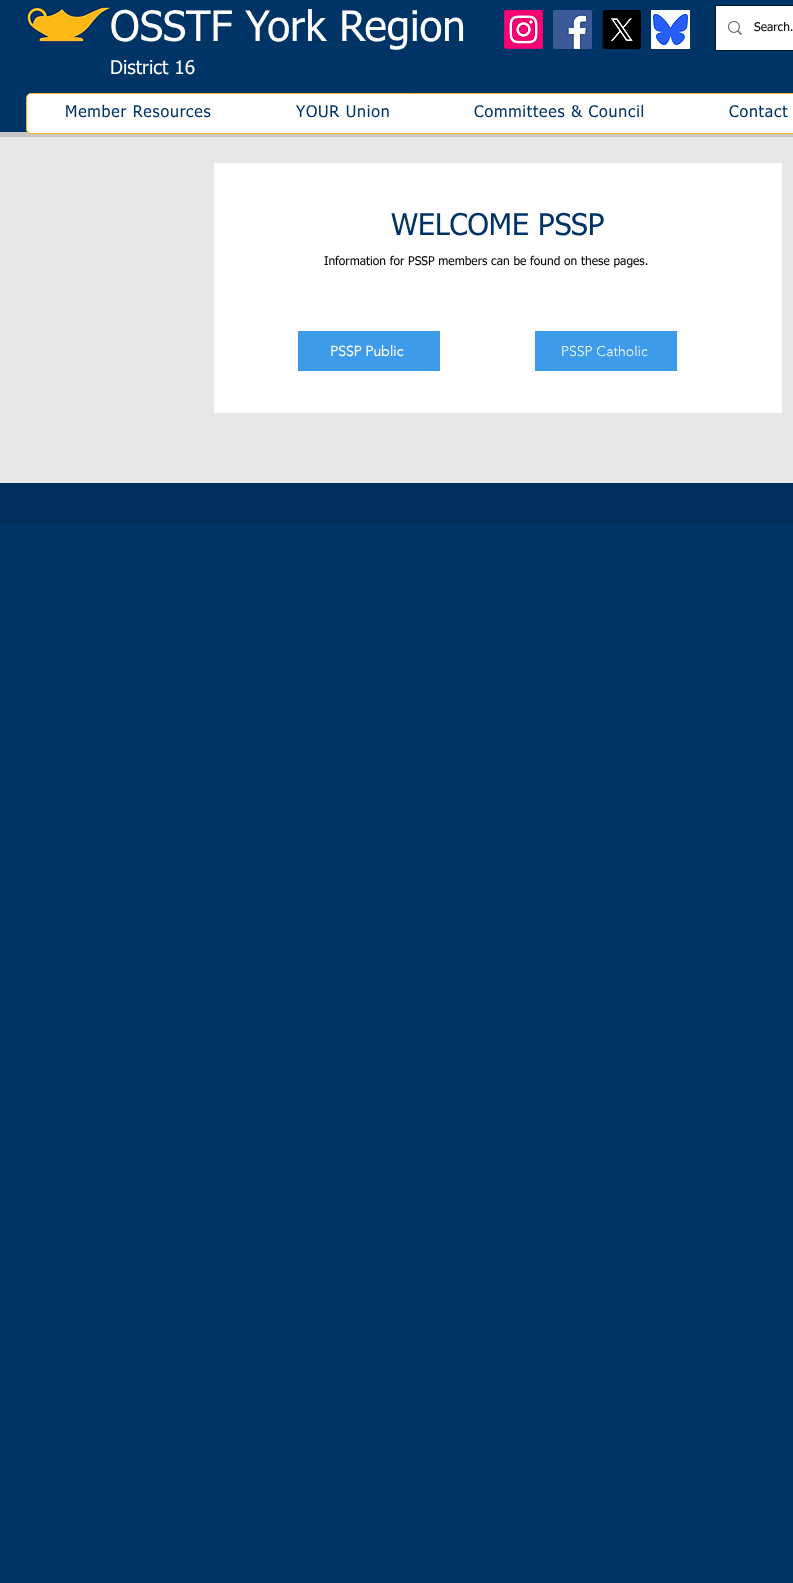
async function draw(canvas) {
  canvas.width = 793;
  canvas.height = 1583;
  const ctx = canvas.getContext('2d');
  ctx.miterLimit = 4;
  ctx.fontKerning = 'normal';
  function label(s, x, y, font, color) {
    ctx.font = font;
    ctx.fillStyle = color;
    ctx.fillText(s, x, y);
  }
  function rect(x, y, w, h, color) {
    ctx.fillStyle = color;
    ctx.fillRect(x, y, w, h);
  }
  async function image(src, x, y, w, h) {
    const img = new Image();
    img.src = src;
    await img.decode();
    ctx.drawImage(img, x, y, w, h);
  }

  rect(0, 0, 793, 1583, '#003467');
  await image('assets/img1.png', 26, 6, 84, 37);
  label('OSSTF York Region', 110, 41, '42px tahoma', '#fff');
  await image('assets/img2.png', 504, 10, 39, 39);
  await image('assets/img3.png', 553, 10, 39, 39);
  await image('assets/img4.png', 602, 10, 39, 39);
  await image('assets/img5.png', 651, 10, 39, 39);
  label('District 16', 110, 74, '19px tahoma', '#fff');
  ctx.strokeStyle = '#001529';
  ctx.strokeRect(715.5, 5.5, 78, 45);
  rect(716, 6, 77, 44, '#fff');
  await image('assets/img6.png', 728, 21, 14, 14);
  label('Search.', 754, 31, '12px tahoma', '#000');
  rect(0, 132, 793, 5, '#c7c7c7');
  ctx.fillStyle = '#fff';
  ctx.beginPath();
  ctx.roundRect(26.5, 93.5, 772, 40, 4.5);
  ctx.fill();
  ctx.strokeStyle = '#fcb814';
  ctx.stroke();
  ctx.letterSpacing = '0.8px';
  label('Member Resources', 65, 117, '16px tahoma', '#003467');
  label('YOUR Union', 296, 117, '16px tahoma', '#003467');
  label('Committees & Council', 474, 117, '16px tahoma', '#003467');
  label('Contact', 729, 117, '16px tahoma', '#003467');
  rect(0, 137, 793, 346, '#e8e6e6');
  rect(214, 163, 568, 250, '#fff');
  ctx.letterSpacing = '0px';
  label('WELCOME PSSP', 391, 235, '30px tahoma', '#003467');
  label('Information for PSSP members can be found on these pages.', 324, 265, '12px tahoma', '#000');
  rect(298, 331, 142, 40, '#3d9be9');
  label('PSSP Public', 330, 356, 'bold 14px "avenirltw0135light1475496"', '#fff');
  rect(535, 331, 142, 40, '#3d9be9');
  label('PSSP Catholic', 561, 356, '300 14px "avenirltw0135light1475496"', '#fff');
  rect(0, 483, 793, 40, '#002e5d');
}

draw(document.querySelector('canvas'));
